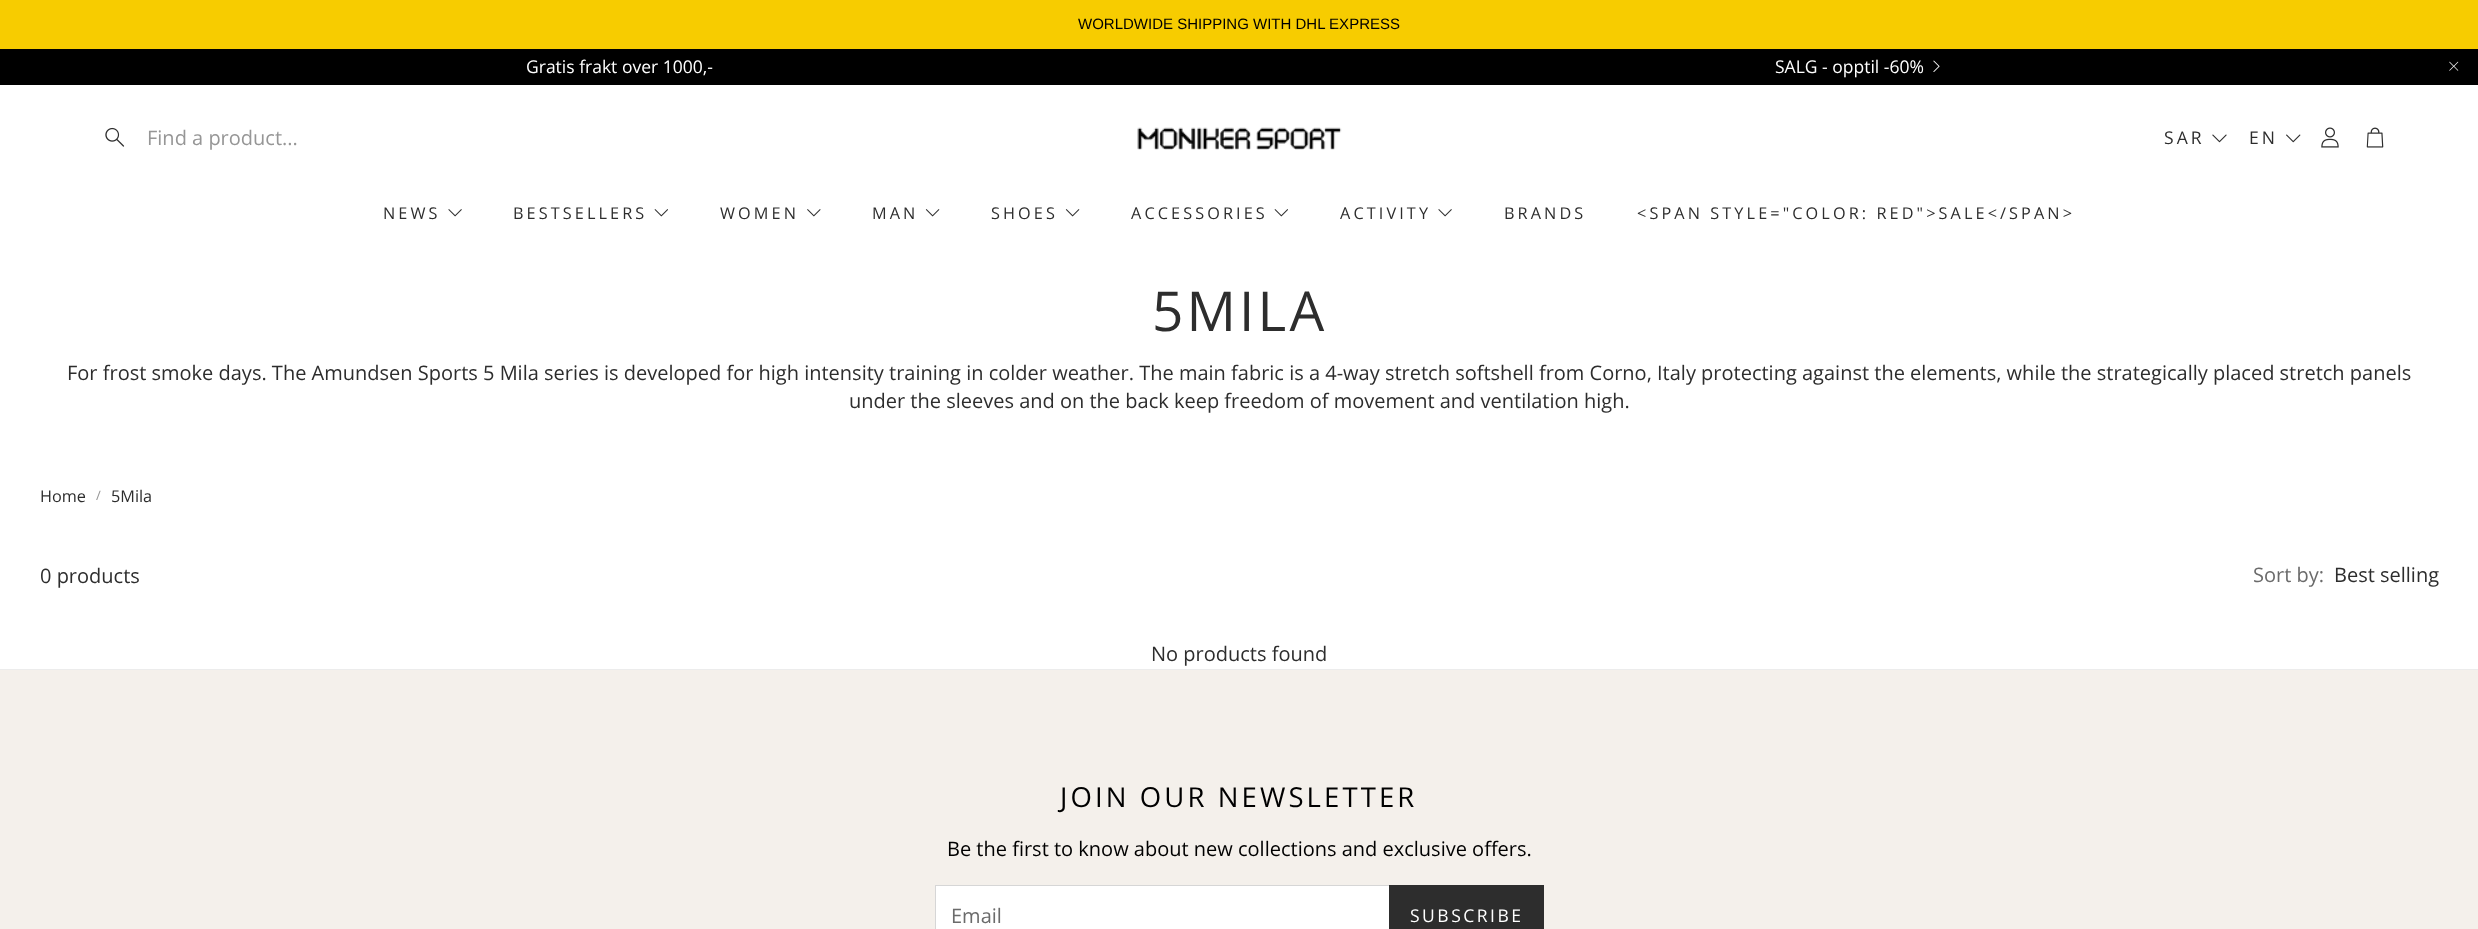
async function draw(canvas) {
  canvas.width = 2478;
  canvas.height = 929;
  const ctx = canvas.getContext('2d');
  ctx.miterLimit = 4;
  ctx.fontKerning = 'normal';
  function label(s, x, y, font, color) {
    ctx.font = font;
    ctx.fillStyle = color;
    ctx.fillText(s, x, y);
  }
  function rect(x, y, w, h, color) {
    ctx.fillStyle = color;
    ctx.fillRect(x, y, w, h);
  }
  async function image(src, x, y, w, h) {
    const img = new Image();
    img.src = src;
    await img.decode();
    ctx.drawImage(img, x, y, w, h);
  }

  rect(0, 0, 2478, 929, '#fff');
  rect(0, 0, 2478, 49, '#f7cc00');
  label('WORLDWIDE SHIPPING WITH DHL EXPRESS', 1078, 29, '15px Liberation Sans', '#000');
  rect(0, 49, 2478, 36, '#000');
  label('Gratis frakt over 1000,-', 526, 73, '17.5px Open Sans', '#fff');
  label('SALG - opptil -60%', 1775, 73, '17.5px Open Sans', '#fff');
  await image('assets/img1.png', 1933, 60, 7, 12);
  await image('assets/img2.png', 2449, 61, 10, 10);
  await image('assets/img3.png', 105, 127, 20, 20);
  label('Find a product...', 147, 145, '20px Open Sans', '#969696');
  await image('assets/img4.png', 1137, 127, 205, 23);
  ctx.letterSpacing = '3.1px';
  label('SAR', 2164, 144, '17.5px Open Sans', '#2d2d2d');
  await image('assets/img5.png', 2212, 134, 15, 9);
  label('EN', 2249, 144, '17.5px Open Sans', '#2d2d2d');
  await image('assets/img6.png', 2286, 134, 15, 9);
  await image('assets/img7.png', 2321, 127, 18, 21);
  await image('assets/img8.png', 2366, 127, 18, 21);
  label('NEWS', 383, 219, '16.25px Open Sans', '#2d2d2d');
  await image('assets/img9.png', 448, 209, 14, 8);
  label('BESTSELLERS', 513, 219, '16.25px Open Sans', '#2d2d2d');
  await image('assets/img10.png', 654, 209, 14, 8);
  label('WOMEN', 720, 219, '16.25px Open Sans', '#2d2d2d');
  await image('assets/img11.png', 807, 209, 14, 8);
  label('MAN', 872, 219, '16.25px Open Sans', '#2d2d2d');
  await image('assets/img12.png', 925, 209, 15, 8);
  label('SHOES', 991, 219, '16.25px Open Sans', '#2d2d2d');
  await image('assets/img12.png', 1065, 209, 15, 8);
  label('ACCESSORIES', 1131, 219, '16.25px Open Sans', '#2d2d2d');
  await image('assets/img10.png', 1274, 209, 14, 8);
  label('ACTIVITY', 1340, 219, '16.25px Open Sans', '#2d2d2d');
  await image('assets/img9.png', 1438, 209, 14, 8);
  label('BRANDS', 1504, 219, '16.25px Open Sans', '#2d2d2d');
  label('<SPAN STYLE="COLOR: RED">SALE<\/SPAN>', 1637, 219, '16.25px Open Sans', '#2d2d2d');
  label('5MILA', 1152, 331, '55px Open Sans', '#2d2d2d');
  ctx.letterSpacing = '0px';
  label('For frost smoke days. The Amundsen Sports 5 Mila series is developed for high intensity training in colder weather. The main fabric is a 4-way stretch softshell from Corno, Italy protecting against the elements, while the strategically placed stretch panels', 67, 380, '20px Open Sans', '#2d2d2d');
  label('under the sleeves and on the back keep freedom of movement and ventilation high.', 849, 408, '20px Open Sans', '#2d2d2d');
  label('Home', 40, 502, '16.25px Open Sans', '#2d2d2d');
  label('/', 96, 500, '13px Open Sans', '#969696');
  label('5Mila', 111, 502, '16.25px Open Sans', '#2d2d2d');
  label('0 products', 40, 583, '20px Open Sans', '#2d2d2d');
  label('Sort by:', 2253, 582, '20px Open Sans', '#6b6b6b');
  label('Best selling', 2334, 582, '20px Open Sans', '#2d2d2d');
  label('No products found', 1151, 661, '20px Open Sans', '#2d2d2d');
  rect(0, 669, 2478, 1, '#ececec');
  rect(0, 670, 2478, 259, '#f4f0eb');
  ctx.letterSpacing = '3.1px';
  label('JOIN OUR NEWSLETTER', 1060, 807, '27.5px Open Sans', '#000');
  ctx.letterSpacing = '0px';
  label('Be the first to know about new collections and exclusive offers.', 947, 856, '20px Open Sans', '#000');
  rect(936, 886, 453, 43, '#fff');
  rect(935, 885, 454, 1, '#d6d6d6');
  rect(935, 885, 1, 44, '#d6d6d6');
  label('Email', 951, 923, '20px Open Sans', '#6b6b6b');
  rect(1389, 885, 155, 44, '#2d2d2d');
  ctx.letterSpacing = '2.5px';
  label('SUBSCRIBE', 1410, 922, '17.5px Open Sans', '#fff');
}

draw(document.querySelector('canvas'));
